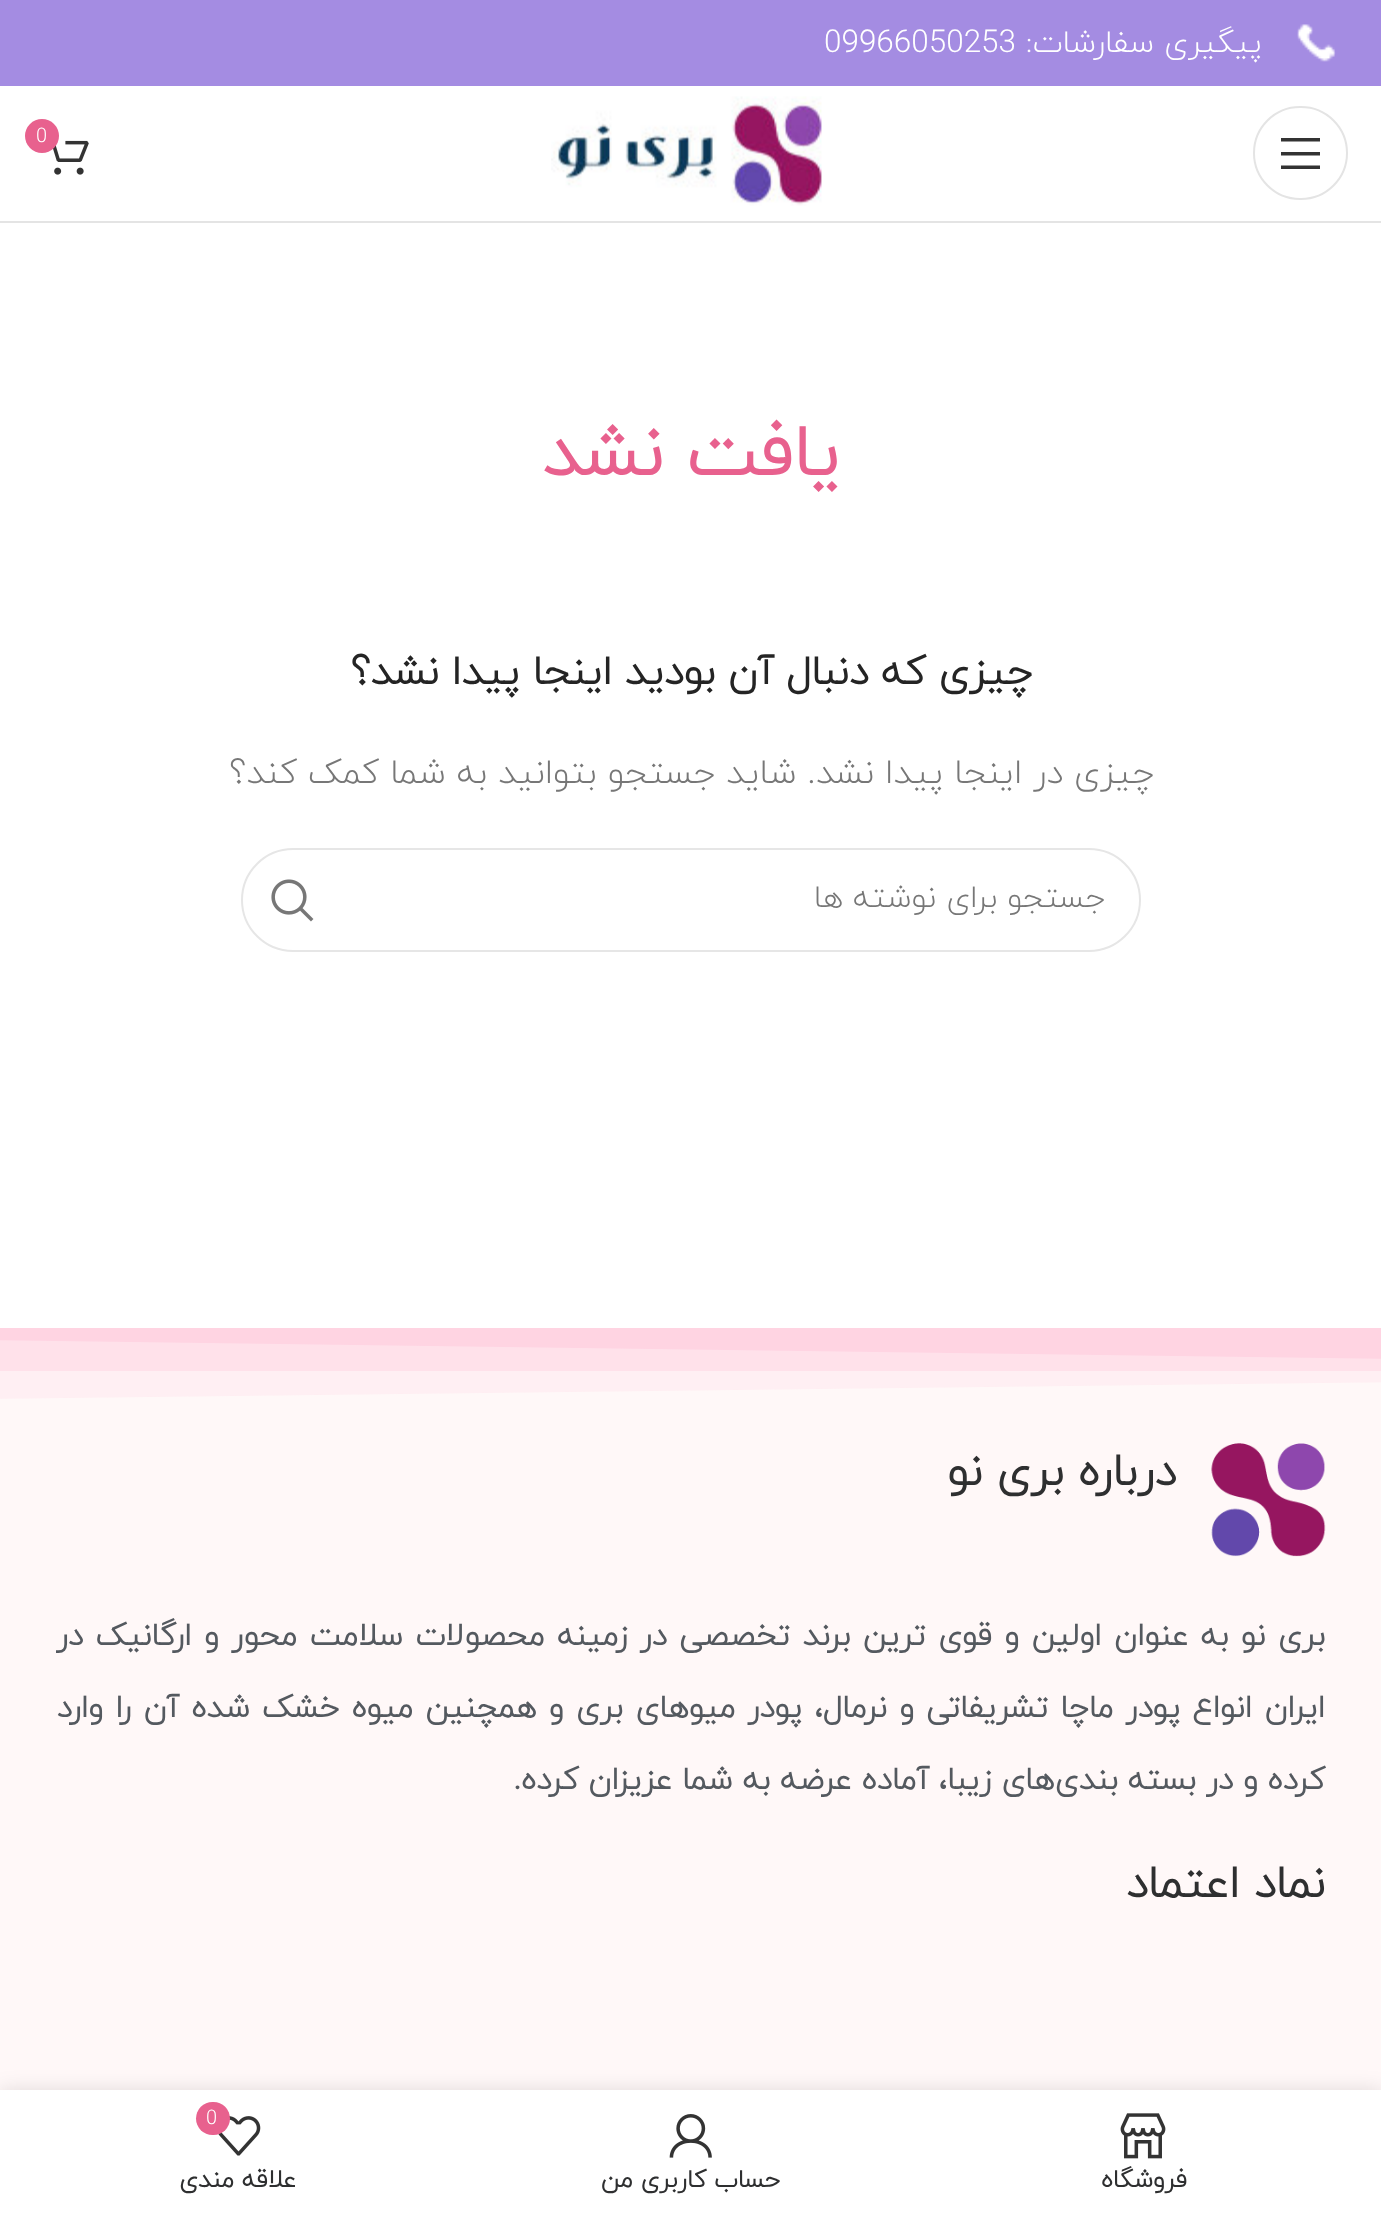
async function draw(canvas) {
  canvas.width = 1381;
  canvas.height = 2214;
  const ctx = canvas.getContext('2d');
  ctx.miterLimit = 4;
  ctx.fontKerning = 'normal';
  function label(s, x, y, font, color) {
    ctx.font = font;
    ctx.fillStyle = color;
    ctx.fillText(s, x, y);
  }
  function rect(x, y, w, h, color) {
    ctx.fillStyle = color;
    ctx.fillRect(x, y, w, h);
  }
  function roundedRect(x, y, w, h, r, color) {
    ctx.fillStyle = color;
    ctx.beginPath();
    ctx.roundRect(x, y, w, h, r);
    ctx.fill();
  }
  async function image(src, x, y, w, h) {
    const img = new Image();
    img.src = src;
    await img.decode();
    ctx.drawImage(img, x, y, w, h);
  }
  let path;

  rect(0, 0, 1381, 2214, '#fff');
  rect(0, 0, 1381, 86, '#a48ce2');
  await image('assets/img1.png', 1297, 24, 39, 38);
  ctx.direction = 'rtl';
  label('پیگیری سفارشات:', 1262, 52, '300 31.5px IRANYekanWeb', '#fff');
  ctx.direction = 'ltr';
  label('09966050253', 824, 52, '300 31.5px IRANYekanWeb', '#fff');
  rect(0, 221, 1381, 2, '#e4e4e4');
  ctx.beginPath();
  ctx.roundRect(1254, 107, 93, 92, 46);
  ctx.strokeStyle = '#e4e4e4';
  ctx.lineWidth = 2;
  ctx.stroke();
  ctx.fillStyle = '#333';
  path = new Path2D('M1281 141.5H1320V138H1281ZM1281 155.5H1320V152H1281ZM1281 169H1320V165.5H1281Z');
  ctx.fill(path);
  await image('assets/img2.png', 551, 96, 271, 110);
  await image('assets/img3.png', 53, 140, 36, 35);
  ctx.fillStyle = '#e8618e';
  ctx.beginPath();
  ctx.arc(42, 136, 17, 0, 2 * Math.PI);
  ctx.fill();
  label('0', 36, 142, '300 20px IRANYekanWeb', '#fff');
  ctx.direction = 'rtl';
  label('یافت نشد', 840, 475, 'bold 72px IRANYekanWeb', '#e8618e');
  label('چیزی که دنبال آن بودید اینجا پیدا نشد؟', 1032, 684, 'bold 40.5px IRANYekanWeb', '#242424');
  label('چیزی در اینجا پیدا نشد. شاید جستجو بتوانید به شما کمک کند؟', 1154, 783, '300 34.65px IRANYekanWeb', '#777');
  ctx.beginPath();
  ctx.roundRect(242, 849, 898, 102, 51);
  ctx.strokeStyle = '#e6e6e6';
  ctx.stroke();
  label('جستجو برای نوشته ها', 1105, 907, '300 31.5px IRANYekanWeb', '#777');
  await image('assets/img4.png', 271, 879, 43, 43);
  rect(0, 1371, 1381, 719, '#fff8f8');
  rect(0, 1340, 1381, 31, '#ffe6ed');
  ctx.fillStyle = '#ffd4e2';
  path = new Path2D('M-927 1328H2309V1371Z');
  ctx.fill(path);
  ctx.fillStyle = '#ffd4e240';
  path = new Path2D('M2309 1328H-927V1410L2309 1371Z');
  ctx.fill(path);
  await image('assets/img5.png', 1211, 1443, 115, 114);
  label('درباره بری نو', 1176, 1485, 'bold 45px IRANYekanWeb', '#2e2f30');
  ctx.wordSpacing = '2.5px';
  label('بری نو به عنوان اولین و قوی ترین برند تخصصی در زمینه محصولات سلامت محور و ارگانیک در', 1325, 1645, 'bold 31.5px IRANYekanWeb', '#54595f');
  ctx.wordSpacing = '2.4px';
  label('ایران انواع پودر ماچا تشریفاتی و نرمال، پودر میو‌های بری و همچنین میوه خشک شده آن را وارد', 1325, 1717, 'bold 31.5px IRANYekanWeb', '#54595f');
  ctx.wordSpacing = '0px';
  label('کرده و در بسته بندی‌های زیبا، آماده عرضه به شما عزیزان کرده.', 1325, 1789, 'bold 31.5px IRANYekanWeb', '#54595f');
  label('نماد اعتماد', 1325, 1897, 'bold 45px IRANYekanWeb', '#2e2f30');
  ctx.fillStyle = '#0000001f';
  ctx.filter = 'blur(10px)';
  ctx.beginPath();
  ctx.rect(0, 2090, 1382, 124);
  ctx.fill();
  ctx.filter = 'none';
  rect(0, 2090, 1381, 124, '#fff');
  await image('assets/img6.png', 1120, 2113, 46, 46);
  label('فروشگاه', 1187, 2187, 'bold 24.75px IRANYekanWeb', '#2e2f30');
  await image('assets/img7.png', 669, 2114, 43, 44);
  label('حساب کاربری من', 780, 2187, 'bold 24.75px IRANYekanWeb', '#2e2f30');
  await image('assets/img8.png', 218, 2116, 43, 40);
  roundedRect(196, 2102, 34, 33, 16.5, '#e8618e');
  ctx.direction = 'ltr';
  label('0', 206, 2124, '300 20px IRANYekanWeb', '#fff');
  ctx.direction = 'rtl';
  label('علاقه مندی', 296, 2187, 'bold 24.75px IRANYekanWeb', '#2e2f30');
}

draw(document.querySelector('canvas'));
